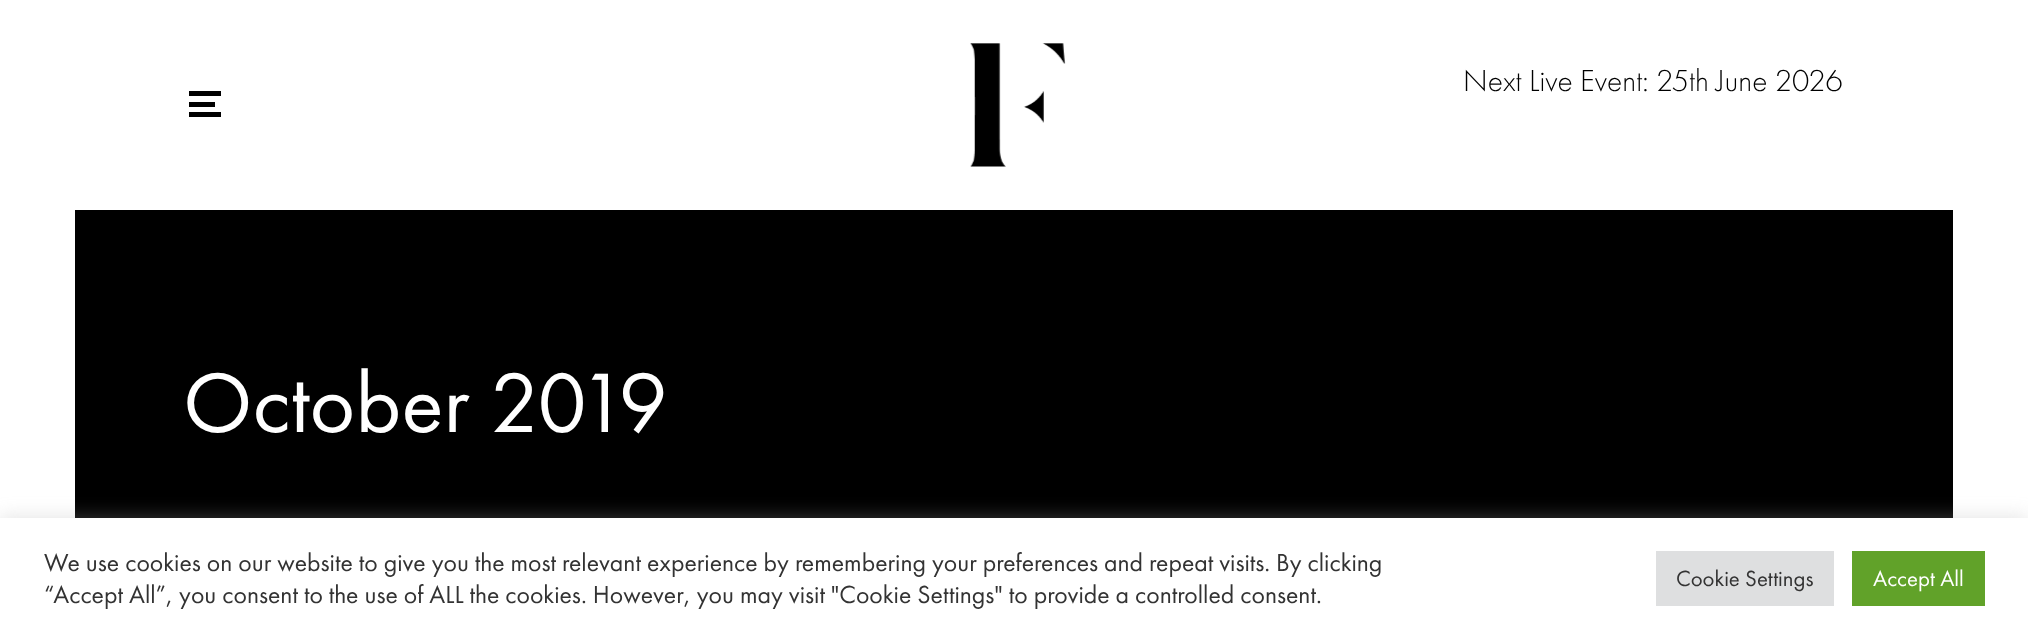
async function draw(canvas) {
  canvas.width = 2028;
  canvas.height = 638;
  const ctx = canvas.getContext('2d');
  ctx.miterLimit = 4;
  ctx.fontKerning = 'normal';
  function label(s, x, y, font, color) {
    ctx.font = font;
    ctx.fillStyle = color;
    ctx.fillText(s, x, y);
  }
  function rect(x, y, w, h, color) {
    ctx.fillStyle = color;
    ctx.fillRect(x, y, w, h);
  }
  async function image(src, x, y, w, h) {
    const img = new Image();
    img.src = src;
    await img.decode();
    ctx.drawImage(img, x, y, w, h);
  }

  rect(0, 0, 2028, 638, '#fff');
  await image('assets/img1.png', 970, 43, 96, 124);
  label('Next Live Event: 25th June 2026', 1463, 91, '300 31.5px Futura PT', '#000');
  rect(189, 91, 32, 5, '#000');
  rect(189, 102, 26, 5, '#000');
  rect(189, 112, 32, 5, '#000');
  rect(75, 210, 1878, 308, '#000');
  label('October 2019', 183, 432, '87.5px Futura PT', '#fff');
  ctx.fillStyle = '#acabab4d';
  ctx.filter = 'blur(9px)';
  ctx.beginPath();
  ctx.rect(0, 516, 2028, 121);
  ctx.fill();
  ctx.filter = 'none';
  rect(0, 518, 2028, 120, '#fff');
  label('We use cookies on our website to give you the most relevant experience by remembering your preferences and repeat visits. By clicking', 44, 571, '25.67px Futura PT', '#333');
  label('“Accept All”, you consent to the use of ALL the cookies. However, you may visit "Cookie Settings" to provide a controlled consent.', 44, 603, '25.67px Futura PT', '#333');
  rect(1656, 551, 178, 55, '#dedfe0');
  label('Cookie Settings', 1676, 586, '22.75px Futura PT', '#333');
  rect(1852, 551, 133, 55, '#61a229');
  label('Accept All', 1873, 586, '22.75px Futura PT', '#fff');
}

draw(document.querySelector('canvas'));
